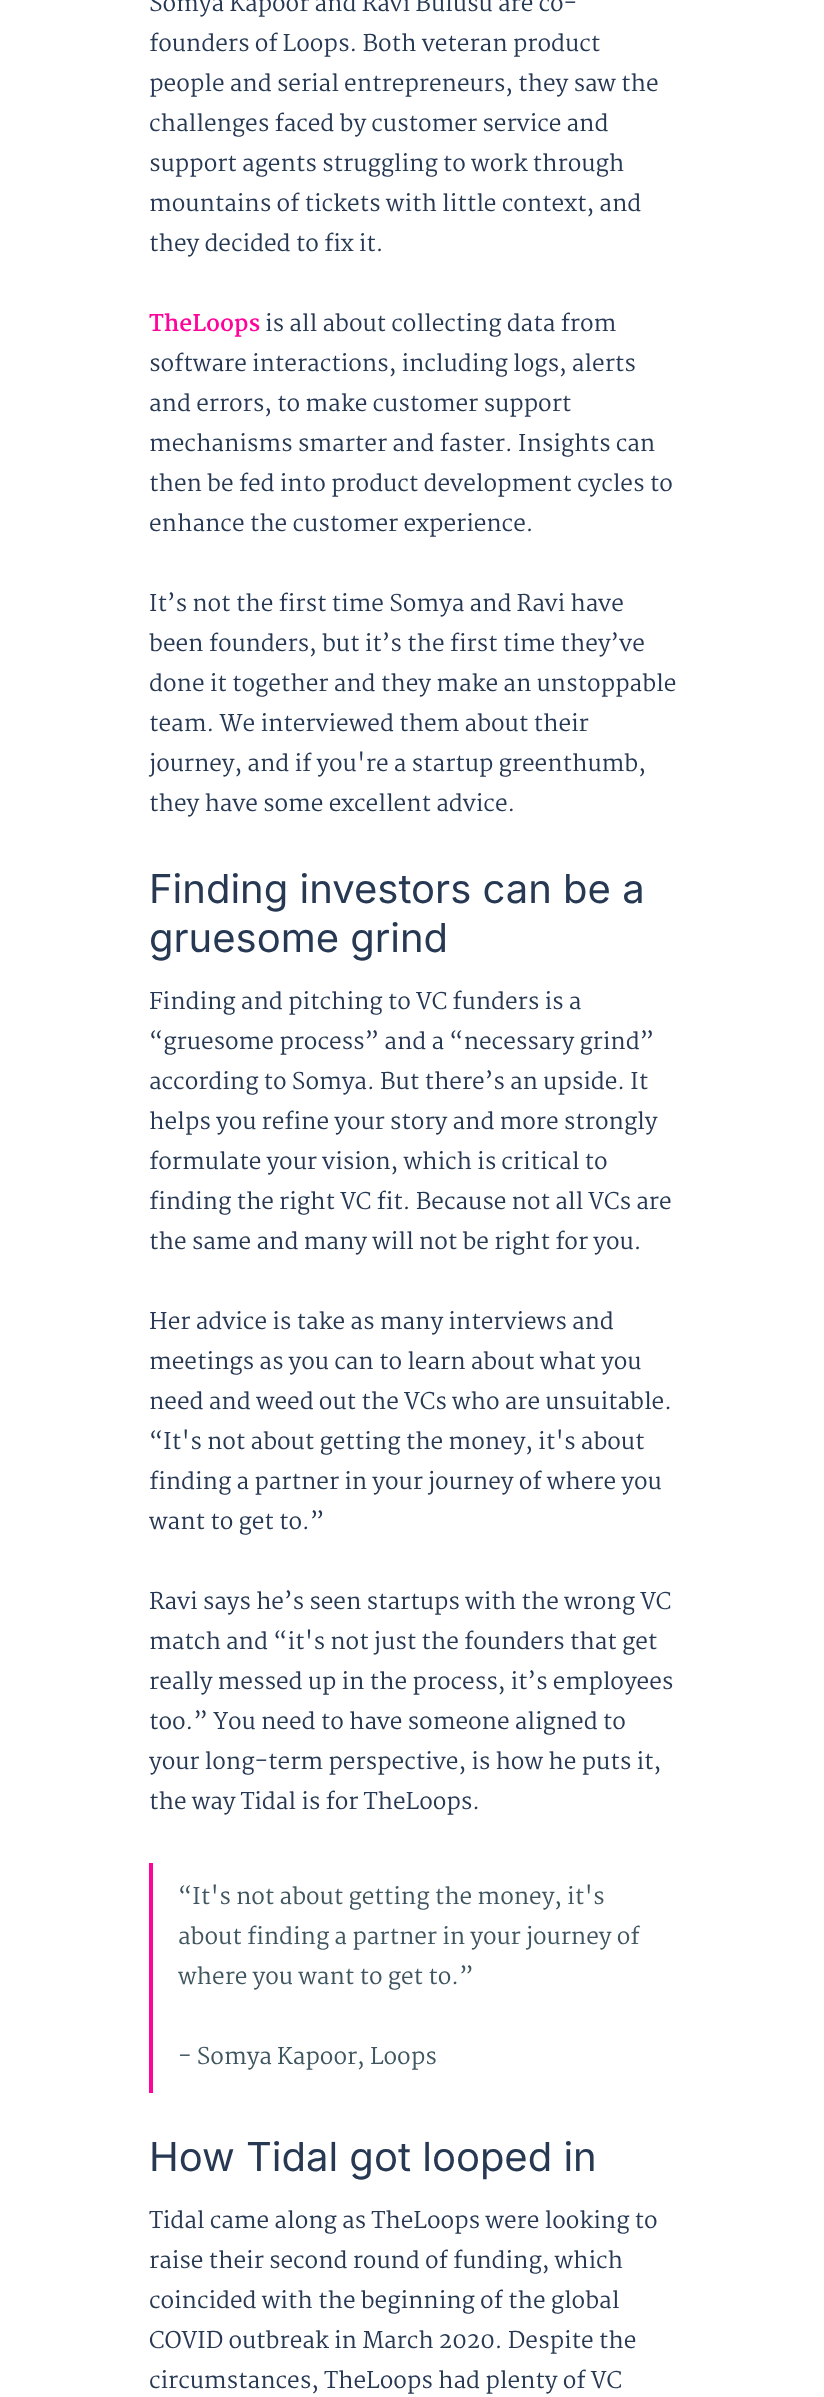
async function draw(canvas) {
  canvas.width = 824;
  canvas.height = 2397;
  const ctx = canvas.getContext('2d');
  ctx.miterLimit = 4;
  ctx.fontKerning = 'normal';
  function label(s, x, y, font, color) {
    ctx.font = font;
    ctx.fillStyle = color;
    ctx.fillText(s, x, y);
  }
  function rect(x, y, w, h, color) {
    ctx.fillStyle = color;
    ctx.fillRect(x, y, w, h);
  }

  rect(0, 0, 824, 2397, '#fff');
  label('Somya Kapoor and Ravi Bulusu are co-', 149, 11, '22.5px Martel', '#273853');
  label('founders of Loops. Both veteran product', 149, 51, '22.5px Martel', '#273853');
  label('people and serial entrepreneurs, they saw the', 149, 91, '22.5px Martel', '#273853');
  label('challenges faced by customer service and', 149, 131, '22.5px Martel', '#273853');
  label('support agents struggling to work through', 149, 171, '22.5px Martel', '#273853');
  label('mountains of tickets with little context, and', 149, 211, '22.5px Martel', '#273853');
  label('they decided to fix it.', 149, 251, '22.5px Martel', '#273853');
  label('TheLoops', 149, 331, 'bold 22.5px Martel', '#fe049b');
  label('is all about collecting data from', 265, 331, '22.5px Martel', '#273853');
  label('software interactions, including logs, alerts', 149, 371, '22.5px Martel', '#273853');
  label('and errors, to make customer support', 149, 411, '22.5px Martel', '#273853');
  label('mechanisms smarter and faster. Insights can', 149, 451, '22.5px Martel', '#273853');
  label('then be fed into product development cycles to', 149, 491, '22.5px Martel', '#273853');
  label('enhance the customer experience.', 149, 531, '22.5px Martel', '#273853');
  label('It’s not the first time Somya and Ravi have', 149, 611, '22.5px Martel', '#273853');
  label('been founders, but it’s the first time they’ve', 149, 651, '22.5px Martel', '#273853');
  label('done it together and they make an unstoppable', 149, 691, '22.5px Martel', '#273853');
  label('team. We interviewed them about their', 149, 731, '22.5px Martel', '#273853');
  label('journey, and if you\'re a startup greenthumb,', 149, 771, '22.5px Martel', '#273853');
  label('they have some excellent advice.', 149, 811, '22.5px Martel', '#273853');
  label('Finding investors can be a', 149, 903, '40px Inter', '#273853');
  label('gruesome grind', 149, 952, '40px Inter', '#273853');
  label('Finding and pitching to VC funders is a', 149, 1009, '22.5px Martel', '#273853');
  label('“gruesome process” and a “necessary grind”', 149, 1049, '22.5px Martel', '#273853');
  label('according to Somya. But there’s an upside. It', 149, 1089, '22.5px Martel', '#273853');
  label('helps you refine your story and more strongly', 149, 1129, '22.5px Martel', '#273853');
  label('formulate your vision, which is critical to', 149, 1169, '22.5px Martel', '#273853');
  label('finding the right VC fit. Because not all VCs are', 149, 1209, '22.5px Martel', '#273853');
  label('the same and many will not be right for you.', 149, 1249, '22.5px Martel', '#273853');
  label('Her advice is take as many interviews and', 149, 1329, '22.5px Martel', '#273853');
  label('meetings as you can to learn about what you', 149, 1369, '22.5px Martel', '#273853');
  label('need and weed out the VCs who are unsuitable.', 149, 1409, '22.5px Martel', '#273853');
  label('“It\'s not about getting the money, it\'s about', 149, 1449, '22.5px Martel', '#273853');
  label('finding a partner in your journey of where you', 149, 1489, '22.5px Martel', '#273853');
  label('want to get to.”', 149, 1529, '22.5px Martel', '#273853');
  label('Ravi says he’s seen startups with the wrong VC', 149, 1609, '22.5px Martel', '#273853');
  label('match and “it\'s not just the founders that get', 149, 1649, '22.5px Martel', '#273853');
  label('really messed up in the process, it’s employees', 149, 1689, '22.5px Martel', '#273853');
  label('too.” You need to have someone aligned to', 149, 1729, '22.5px Martel', '#273853');
  label('your long-term perspective, is how he puts it,', 149, 1769, '22.5px Martel', '#273853');
  label('the way Tidal is for TheLoops.', 149, 1809, '22.5px Martel', '#273853');
  rect(149, 1863, 4, 230, '#fe049b');
  label('“It\'s not about getting the money, it\'s', 178, 1904, '22.5px Martel', '#3f555f');
  label('about finding a partner in your journey of', 178, 1944, '22.5px Martel', '#3f555f');
  label('where you want to get to.”', 178, 1984, '22.5px Martel', '#3f555f');
  label('- Somya Kapoor, Loops', 178, 2064, '22.5px Martel', '#3f555f');
  label('How Tidal got looped in', 149, 2171, '40px Inter', '#273853');
  label('Tidal came along as TheLoops were looking to', 149, 2228, '22.5px Martel', '#273853');
  label('raise their second round of funding, which', 149, 2268, '22.5px Martel', '#273853');
  label('coincided with the beginning of the global', 149, 2308, '22.5px Martel', '#273853');
  label('COVID outbreak in March 2020. Despite the', 149, 2348, '22.5px Martel', '#273853');
  label('circumstances, TheLoops had plenty of VC', 149, 2388, '22.5px Martel', '#273853');
}

draw(document.querySelector('canvas'));
